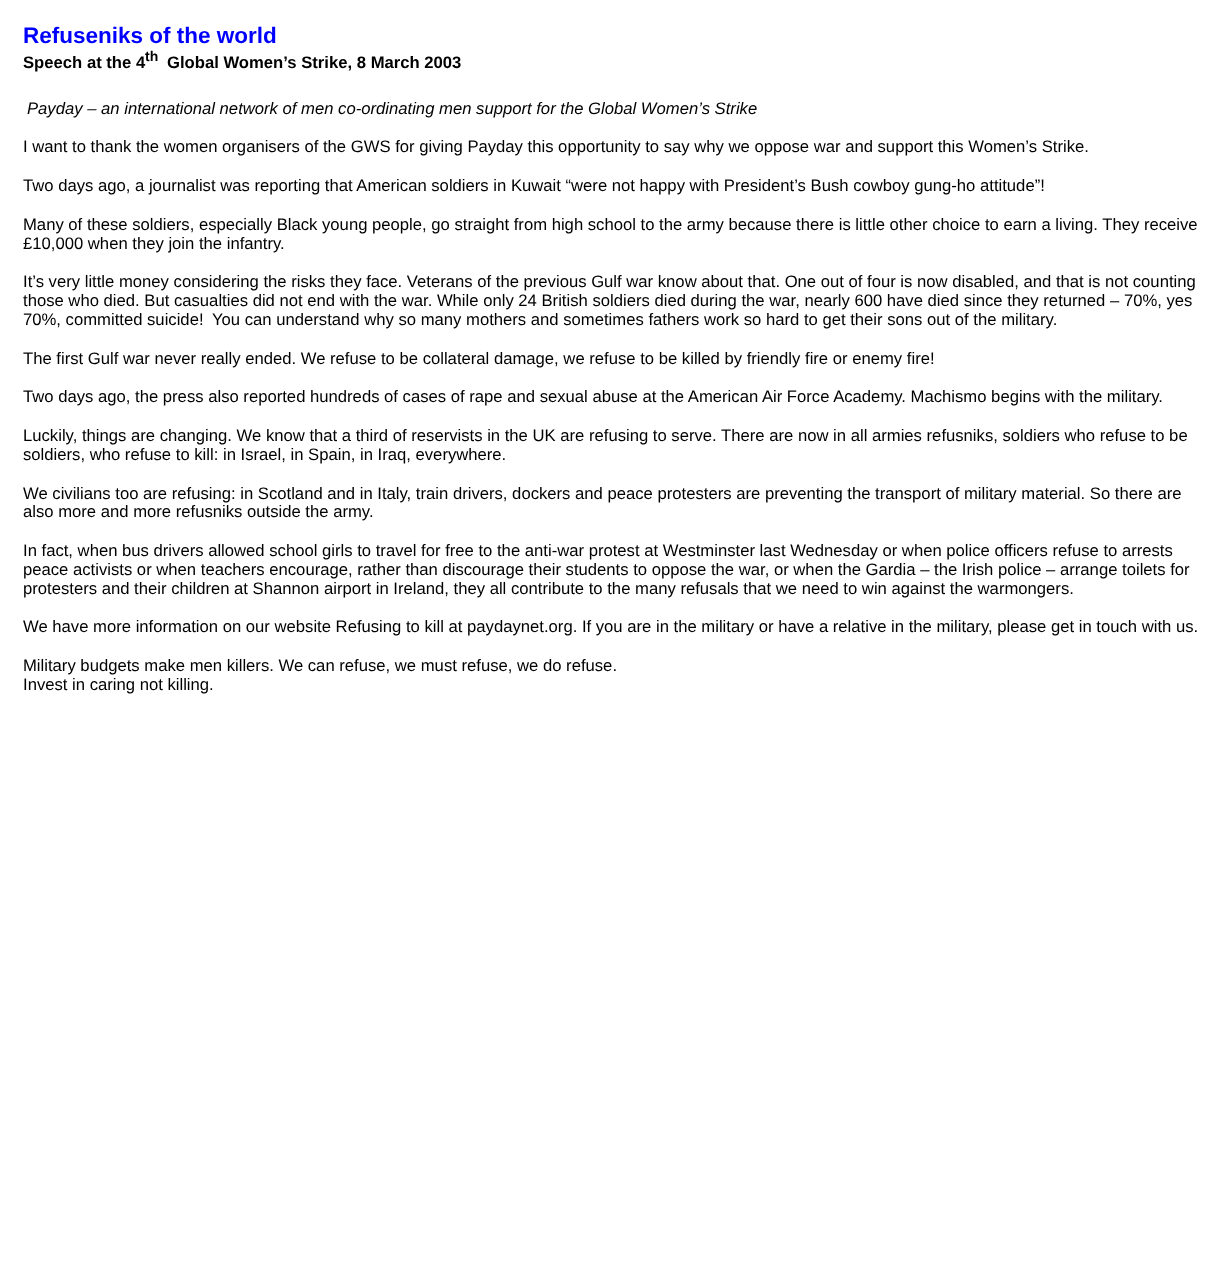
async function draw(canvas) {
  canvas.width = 1216;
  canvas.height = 1287;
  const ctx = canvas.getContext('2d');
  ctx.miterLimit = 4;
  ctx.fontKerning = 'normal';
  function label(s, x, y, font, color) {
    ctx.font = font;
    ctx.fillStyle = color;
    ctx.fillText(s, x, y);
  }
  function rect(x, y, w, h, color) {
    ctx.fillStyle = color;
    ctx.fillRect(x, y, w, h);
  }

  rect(0, 0, 1216, 1287, '#fff');
  label('Refuseniks of the world', 23, 43, 'bold 22.5px Liberation Sans', '#00f');
  label('Speech at the 4', 23, 68, 'bold 16.67px Liberation Sans', '#000');
  label('th', 145, 61, 'bold 14px Liberation Sans', '#000');
  label('Global Women’s Strike, 8 March 2003', 167, 68, 'bold 16.67px Liberation Sans', '#000');
  label('Payday – an international network of men co-ordinating men support for the Global Women’s Strike', 27, 114, 'italic 16.67px Liberation Sans', '#000');
  label('I want to thank the women organisers of the GWS for giving Payday this opportunity to say why we oppose war and support this Women’s Strike.', 23, 152, '16.67px Liberation Sans', '#000');
  label('Two days ago, a journalist was reporting that American soldiers in Kuwait “were not happy with President’s Bush cowboy gung-ho attitude”!', 23, 191, '16.67px Liberation Sans', '#000');
  label('Many of these soldiers, especially Black young people, go straight from high school to the army because there is little other choice to earn a living. They receive', 23, 230, '16.67px Liberation Sans', '#000');
  label('£10,000 when they join the infantry.', 23, 249, '16.67px Liberation Sans', '#000');
  label('It’s very little money considering the risks they face. Veterans of the previous Gulf war know about that. One out of four is now disabled, and that is not counting', 23, 287, '16.67px Liberation Sans', '#000');
  label('those who died. But casualties did not end with the war. While only 24 British soldiers died during the war, nearly 600 have died since they returned – 70%, yes', 23, 306, '16.67px Liberation Sans', '#000');
  label('70%, committed suicide!', 23, 325, '16.67px Liberation Sans', '#000');
  label('You can understand why so many mothers and sometimes fathers work so hard to get their sons out of the military.', 212, 325, '16.67px Liberation Sans', '#000');
  label('The first Gulf war never really ended. We refuse to be collateral damage, we refuse to be killed by friendly fire or enemy fire!', 23, 364, '16.67px Liberation Sans', '#000');
  label('Two days ago, the press also reported hundreds of cases of rape and sexual abuse at the American Air Force Academy. Machismo begins with the military.', 23, 402, '16.67px Liberation Sans', '#000');
  label('Luckily, things are changing. We know that a third of reservists in the UK are refusing to serve. There are now in all armies refusniks, soldiers who refuse to be', 23, 441, '16.67px Liberation Sans', '#000');
  label('soldiers, who refuse to kill: in Israel, in Spain, in Iraq, everywhere.', 23, 460, '16.67px Liberation Sans', '#000');
  label('We civilians too are refusing: in Scotland and in Italy, train drivers, dockers and peace protesters are preventing the transport of military material. So there are', 23, 499, '16.67px Liberation Sans', '#000');
  label('also more and more refusniks outside the army.', 23, 517, '16.67px Liberation Sans', '#000');
  label('In fact, when bus drivers allowed school girls to travel for free to the anti-war protest at Westminster last Wednesday or when police officers refuse to arrests', 23, 556, '16.67px Liberation Sans', '#000');
  label('peace activists or when teachers encourage, rather than discourage their students to oppose the war, or when the Gardia – the Irish police – arrange toilets for', 23, 575, '16.67px Liberation Sans', '#000');
  label('protesters and their children at Shannon airport in Ireland, they all contribute to the many refusals that we need to win against the warmongers.', 23, 594, '16.67px Liberation Sans', '#000');
  label('We have more information on our website Refusing to kill at paydaynet.org. If you are in the military or have a relative in the military, please get in touch with us.', 23, 632, '16.67px Liberation Sans', '#000');
  label('Military budgets make men killers. We can refuse, we must refuse, we do refuse.', 23, 671, '16.67px Liberation Sans', '#000');
  label('Invest in caring not killing.', 23, 690, '16.67px Liberation Sans', '#000');
}

draw(document.querySelector('canvas'));
